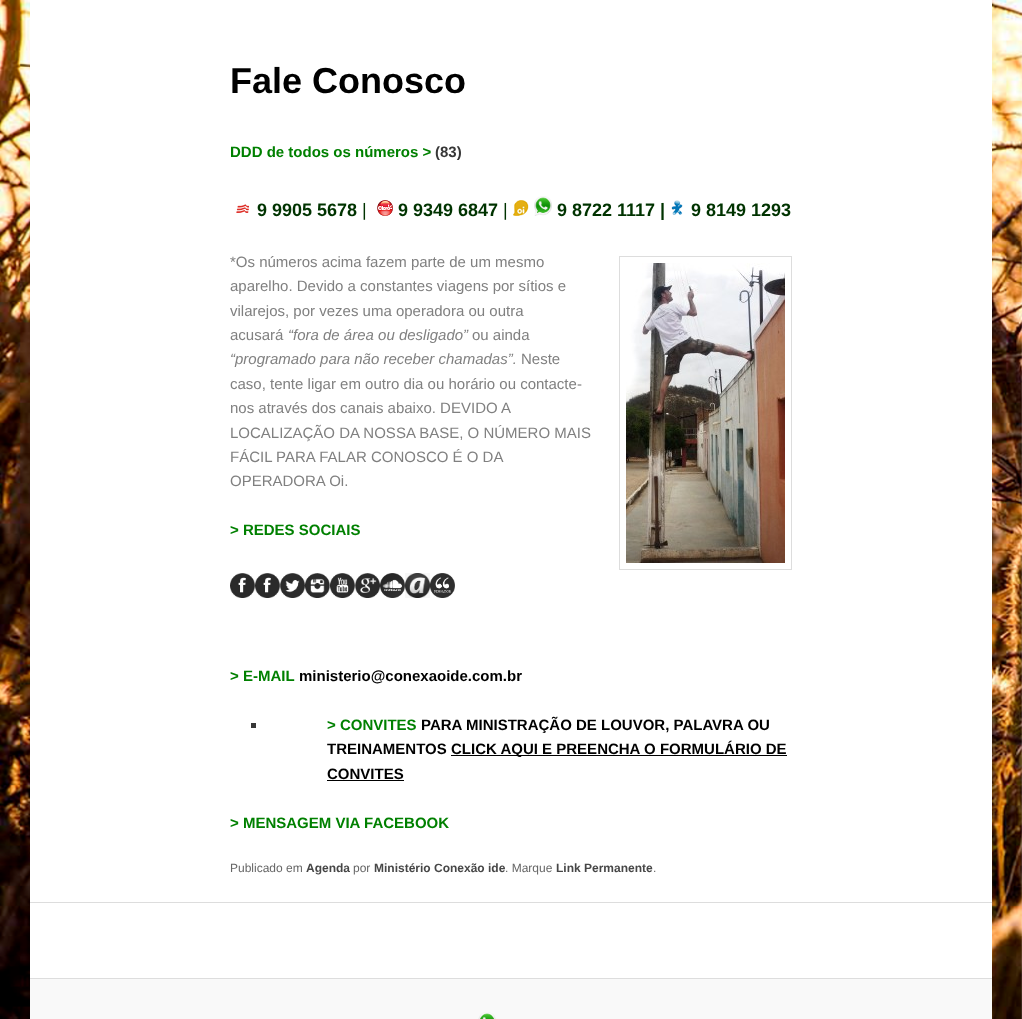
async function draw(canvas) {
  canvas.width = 1022;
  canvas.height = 1019;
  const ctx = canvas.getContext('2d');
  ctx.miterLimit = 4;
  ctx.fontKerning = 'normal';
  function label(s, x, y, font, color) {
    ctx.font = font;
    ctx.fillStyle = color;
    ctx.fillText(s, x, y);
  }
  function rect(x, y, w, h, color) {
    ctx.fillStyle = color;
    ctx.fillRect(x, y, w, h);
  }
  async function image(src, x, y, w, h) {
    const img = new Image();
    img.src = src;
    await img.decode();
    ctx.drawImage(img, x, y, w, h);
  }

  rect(0, 0, 1022, 1019, '#fff');
  await image('assets/img1.png', 0, 0, 1022, 1019);
  rect(30, 0, 962, 978, '#fff');
  label('Fale Conosco', 230, 93, 'bold 36px Liberation Sans', '#000');
  label('DDD de todos os números >', 230, 157, 'bold 15px Liberation Sans', '#008000');
  label('(83)', 435, 157, 'bold 15px Liberation Sans', '#373737');
  await image('assets/img2.png', 236, 204, 13, 9);
  label('9 9905 5678', 257, 216, 'bold 18px Liberation Sans', '#030');
  label('|', 362, 216, '18px Liberation Sans', '#030');
  await image('assets/img3.png', 377, 200, 16, 16);
  label('9 9349 6847', 398, 216, 'bold 18px Liberation Sans', '#030');
  label('|', 503, 216, '18px Liberation Sans', '#030');
  await image('assets/img4.png', 513, 200, 16, 16);
  await image('assets/img5.png', 534, 196, 18, 20);
  label('9 8722 1117 |', 557, 216, 'bold 18px Liberation Sans', '#030');
  await image('assets/img6.png', 671, 200, 12, 15);
  label('9 8149 1293', 691, 216, 'bold 18px Liberation Sans', '#030');
  label('*Os números acima fazem parte de um mesmo', 230, 267, '15px Liberation Sans', '#808080');
  label('aparelho. Devido a constantes viagens por sítios e', 230, 291, '15px Liberation Sans', '#808080');
  label('vilarejos, por vezes uma operadora ou outra', 230, 316, '15px Liberation Sans', '#808080');
  label('acusará', 230, 340, '15px Liberation Sans', '#808080');
  label('“fora de área ou desligado”', 288, 340, 'italic 15px Liberation Sans', '#808080');
  label('ou ainda', 472, 340, '15px Liberation Sans', '#808080');
  label('“programado para não receber chamadas”.', 230, 364, 'italic 15px Liberation Sans', '#808080');
  label('Neste', 521, 364, '15px Liberation Sans', '#808080');
  label('caso, tente ligar em outro dia ou horário ou contacte-', 230, 389, '15px Liberation Sans', '#808080');
  label('nos através dos canais abaixo. DEVIDO A', 230, 413, '15px Liberation Sans', '#808080');
  label('LOCALIZAÇÃO DA NOSSA BASE, O NÚMERO MAIS', 230, 438, '15px Liberation Sans', '#808080');
  label('FÁCIL PARA FALAR CONOSCO É O DA', 230, 462, '15px Liberation Sans', '#808080');
  label('OPERADORA Oi.', 230, 486, '15px Liberation Sans', '#808080');
  ctx.strokeStyle = '#ddd';
  ctx.strokeRect(619.5, 256.5, 172, 313);
  await image('assets/img7.png', 626, 263, 159, 300);
  label('> REDES SOCIAIS', 230, 535, 'bold 15px Liberation Sans', '#008000');
  await image('assets/img8.png', 230, 573, 25, 25);
  await image('assets/img8.png', 255, 573, 25, 25);
  await image('assets/img9.png', 280, 573, 25, 25);
  await image('assets/img10.png', 305, 573, 25, 25);
  await image('assets/img11.png', 330, 573, 25, 25);
  await image('assets/img12.png', 355, 573, 25, 25);
  await image('assets/img13.png', 380, 573, 25, 25);
  await image('assets/img14.png', 405, 573, 25, 25);
  await image('assets/img15.png', 430, 573, 25, 25);
  label('> E-MAIL', 230, 681, 'bold 15px Liberation Sans', '#008000');
  label('ministerio@conexaoide.com.br', 299, 681, 'bold 15px Liberation Sans', '#000');
  rect(251, 723, 5, 5, '#373737');
  label('> CONVITES', 327, 730, 'bold 15px Liberation Sans', '#008000');
  label('PARA MINISTRAÇÃO DE LOUVOR, PALAVRA OU', 421, 730, 'bold 15px Liberation Sans', '#000');
  label('TREINAMENTOS', 327, 754, 'bold 15px Liberation Sans', '#000');
  rect(451, 755, 336, 1, '#000');
  label('CLICK AQUI E PREENCHA O FORMULÁRIO DE', 451, 754, 'bold 15px Liberation Sans', '#000');
  label('CONVITES', 327, 779, 'bold 15px Liberation Sans', '#000');
  rect(327, 780, 77, 1, '#000');
  label('> MENSAGEM VIA FACEBOOK', 230, 828, 'bold 15px Liberation Sans', '#008000');
  label('Publicado em', 230, 872, '12px Liberation Sans', '#666');
  label('Agenda', 306, 872, 'bold 12px Liberation Sans', '#474747');
  label('por', 353, 872, '12px Liberation Sans', '#666');
  label('Ministério Conexão ide', 374, 872, 'bold 12px Liberation Sans', '#474747');
  label('. Marque', 505, 872, '12px Liberation Sans', '#666');
  label('Link Permanente', 556, 872, 'bold 12px Liberation Sans', '#474747');
  label('.', 653, 872, '12px Liberation Sans', '#666');
  rect(30, 902, 962, 1, '#ddd');
  rect(30, 979, 962, 40, '#f9f9f9');
  rect(30, 978, 962, 1, '#ddd');
  await image('assets/img16.png', 478, 1012, 18, 7);
}

draw(document.querySelector('canvas'));
